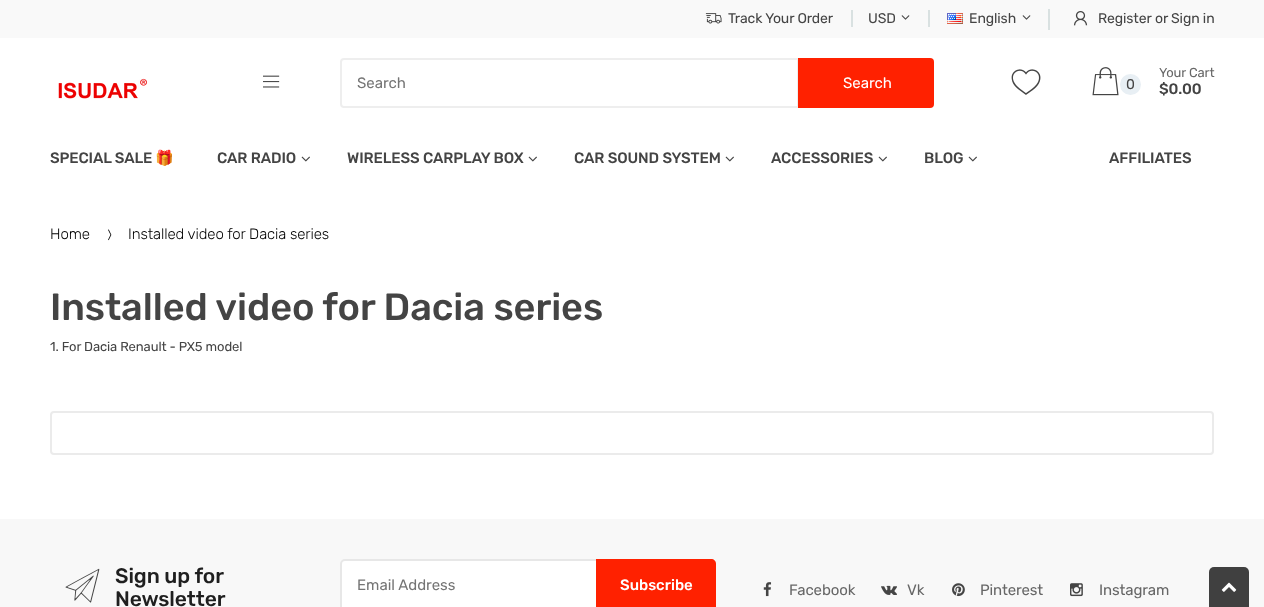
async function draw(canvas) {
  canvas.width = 1264;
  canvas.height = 607;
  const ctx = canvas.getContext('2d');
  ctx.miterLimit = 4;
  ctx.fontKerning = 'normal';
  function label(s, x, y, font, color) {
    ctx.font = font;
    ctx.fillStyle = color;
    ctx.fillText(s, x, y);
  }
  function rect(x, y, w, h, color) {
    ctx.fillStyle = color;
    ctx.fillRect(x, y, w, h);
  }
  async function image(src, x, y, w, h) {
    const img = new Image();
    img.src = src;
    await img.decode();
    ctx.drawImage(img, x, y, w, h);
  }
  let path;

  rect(0, 0, 1264, 607, '#fff');
  rect(0, 0, 1264, 38, '#f9f9f9');
  await image('assets/img1.png', 705, 13, 17, 11);
  ctx.letterSpacing = '-0.1px';
  label('Track Your Order', 728, 23, '14px Rubik', '#444');
  rect(851, 10, 2, 17, '#d9e1e1');
  label('USD', 868, 23, '14px Rubik', '#444');
  await image('assets/img2.png', 901, 15, 9, 5);
  rect(928, 10, 2, 17, '#d9e1e1');
  await image('assets/img3.png', 947, 13, 16, 11);
  label('English', 969, 23, '14px Rubik', '#444');
  await image('assets/img2.png', 1022, 15, 9, 5);
  rect(1048, 9, 2, 21, '#d9e1e1');
  await image('assets/img4.png', 1073, 11, 15, 15);
  label('Register', 1098, 23, '14px Rubik', '#444');
  label('or', 1155, 23, '14px Rubik', '#444');
  label('Sign in', 1171, 23, '14px Rubik', '#444');
  await image('assets/img5.png', 58, 78, 89, 21);
  await image('assets/img6.png', 263, 75, 17, 13);
  ctx.beginPath();
  ctx.roundRect(341, 59, 457, 48, [3, 0, 0, 3]);
  ctx.strokeStyle = '#eee';
  ctx.lineWidth = 2;
  ctx.stroke();
  ctx.letterSpacing = '0px';
  label('Search', 357, 88, '15px Rubik', '#757575');
  ctx.fillStyle = '#ff2100';
  ctx.beginPath();
  ctx.roundRect(798, 58, 136, 50, [0, 4, 4, 0]);
  ctx.fill();
  label('Search', 843, 88, '15px Rubik', '#fff');
  await image('assets/img7.png', 1011, 69, 30, 26);
  await image('assets/img8.png', 1092, 67, 27, 29);
  ctx.fillStyle = '#e8eff4';
  ctx.beginPath();
  ctx.arc(1130.5, 84.5, 10.5, 0, 2 * Math.PI);
  ctx.fill();
  label('0', 1126, 89, '14px Rubik', '#444');
  ctx.letterSpacing = '-0.1px';
  label('Your Cart', 1159, 77, '13px Rubik', '#676767');
  label('$0.00', 1159, 94, '500 15px Rubik', '#444');
  label('SPECIAL SALE', 50, 163, '500 15px Rubik', '#444');
  label('🎁', 155, 163, '15px Noto Color Emoji', '#444');
  label('CAR RADIO', 217, 163, '500 15px Rubik', '#444');
  await image('assets/img9.png', 301, 156, 9, 6);
  label('WIRELESS CARPLAY BOX', 347, 163, '500 15px Rubik', '#444');
  await image('assets/img9.png', 528, 156, 9, 6);
  label('CAR SOUND SYSTEM', 574, 163, '500 15px Rubik', '#444');
  await image('assets/img9.png', 725, 156, 9, 6);
  label('ACCESSORIES', 771, 163, '500 15px Rubik', '#444');
  await image('assets/img9.png', 878, 156, 9, 6);
  label('BLOG', 924, 163, '500 15px Rubik', '#444');
  await image('assets/img9.png', 968, 156, 9, 6);
  label('AFFILIATES', 1109, 163, '500 15px Rubik', '#444');
  label('Home', 50, 239, '300 15px Rubik', '#000');
  await image('assets/img10.png', 108, 229, 4, 12);
  label('Installed video for Dacia series', 128, 239, '300 15px Rubik', '#000');
  label('Installed video for Dacia series', 50, 320, '500 38px Rubik', '#444');
  label('1. For Dacia Renault - PX5 model', 50, 351, '13px Rubik', '#444');
  ctx.beginPath();
  ctx.roundRect(51, 412, 1162, 42, 3);
  ctx.strokeStyle = '#ebebeb';
  ctx.stroke();
  rect(0, 519, 1264, 88, '#f8f8f8');
  await image('assets/img11.png', 65, 568, 35, 35);
  label('Sign up for', 115, 583, '500 21px Rubik', '#1f1f1f');
  label('Newsletter', 115, 606, '500 21px Rubik', '#1f1f1f');
  ctx.fillStyle = '#fff';
  ctx.beginPath();
  ctx.roundRect(341, 560, 374, 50, 4);
  ctx.fill();
  ctx.strokeStyle = '#e7e7e7';
  ctx.stroke();
  ctx.letterSpacing = '0px';
  label('Email Address', 357, 590, '15px Rubik', '#757575');
  ctx.fillStyle = '#ff2100';
  path = new Path2D('M596 559H711C714 559 716 561 716 564V606C716 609 714 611 711 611H596Z');
  ctx.fill(path);
  label('Subscribe', 620, 590, '500 15px Rubik', '#fff');
  await image('assets/img12.png', 763, 582, 9, 15);
  ctx.letterSpacing = '-0.1px';
  label('Facebook', 789, 595, '15px Rubik', '#676767');
  await image('assets/img13.png', 881, 585, 16, 10);
  label('Vk', 907, 595, '15px Rubik', '#676767');
  await image('assets/img14.png', 952, 583, 13, 14);
  label('Pinterest', 980, 595, '15px Rubik', '#676767');
  await image('assets/img15.png', 1070, 583, 13, 14);
  label('Instagram', 1099, 595, '15px Rubik', '#676767');
  ctx.fillStyle = '#404040';
  ctx.beginPath();
  ctx.roundRect(1209, 567, 40, 40, [5, 5, 0, 0]);
  ctx.fill();
  await image('assets/img16.png', 1221, 582, 16, 10);
}

draw(document.querySelector('canvas'));
